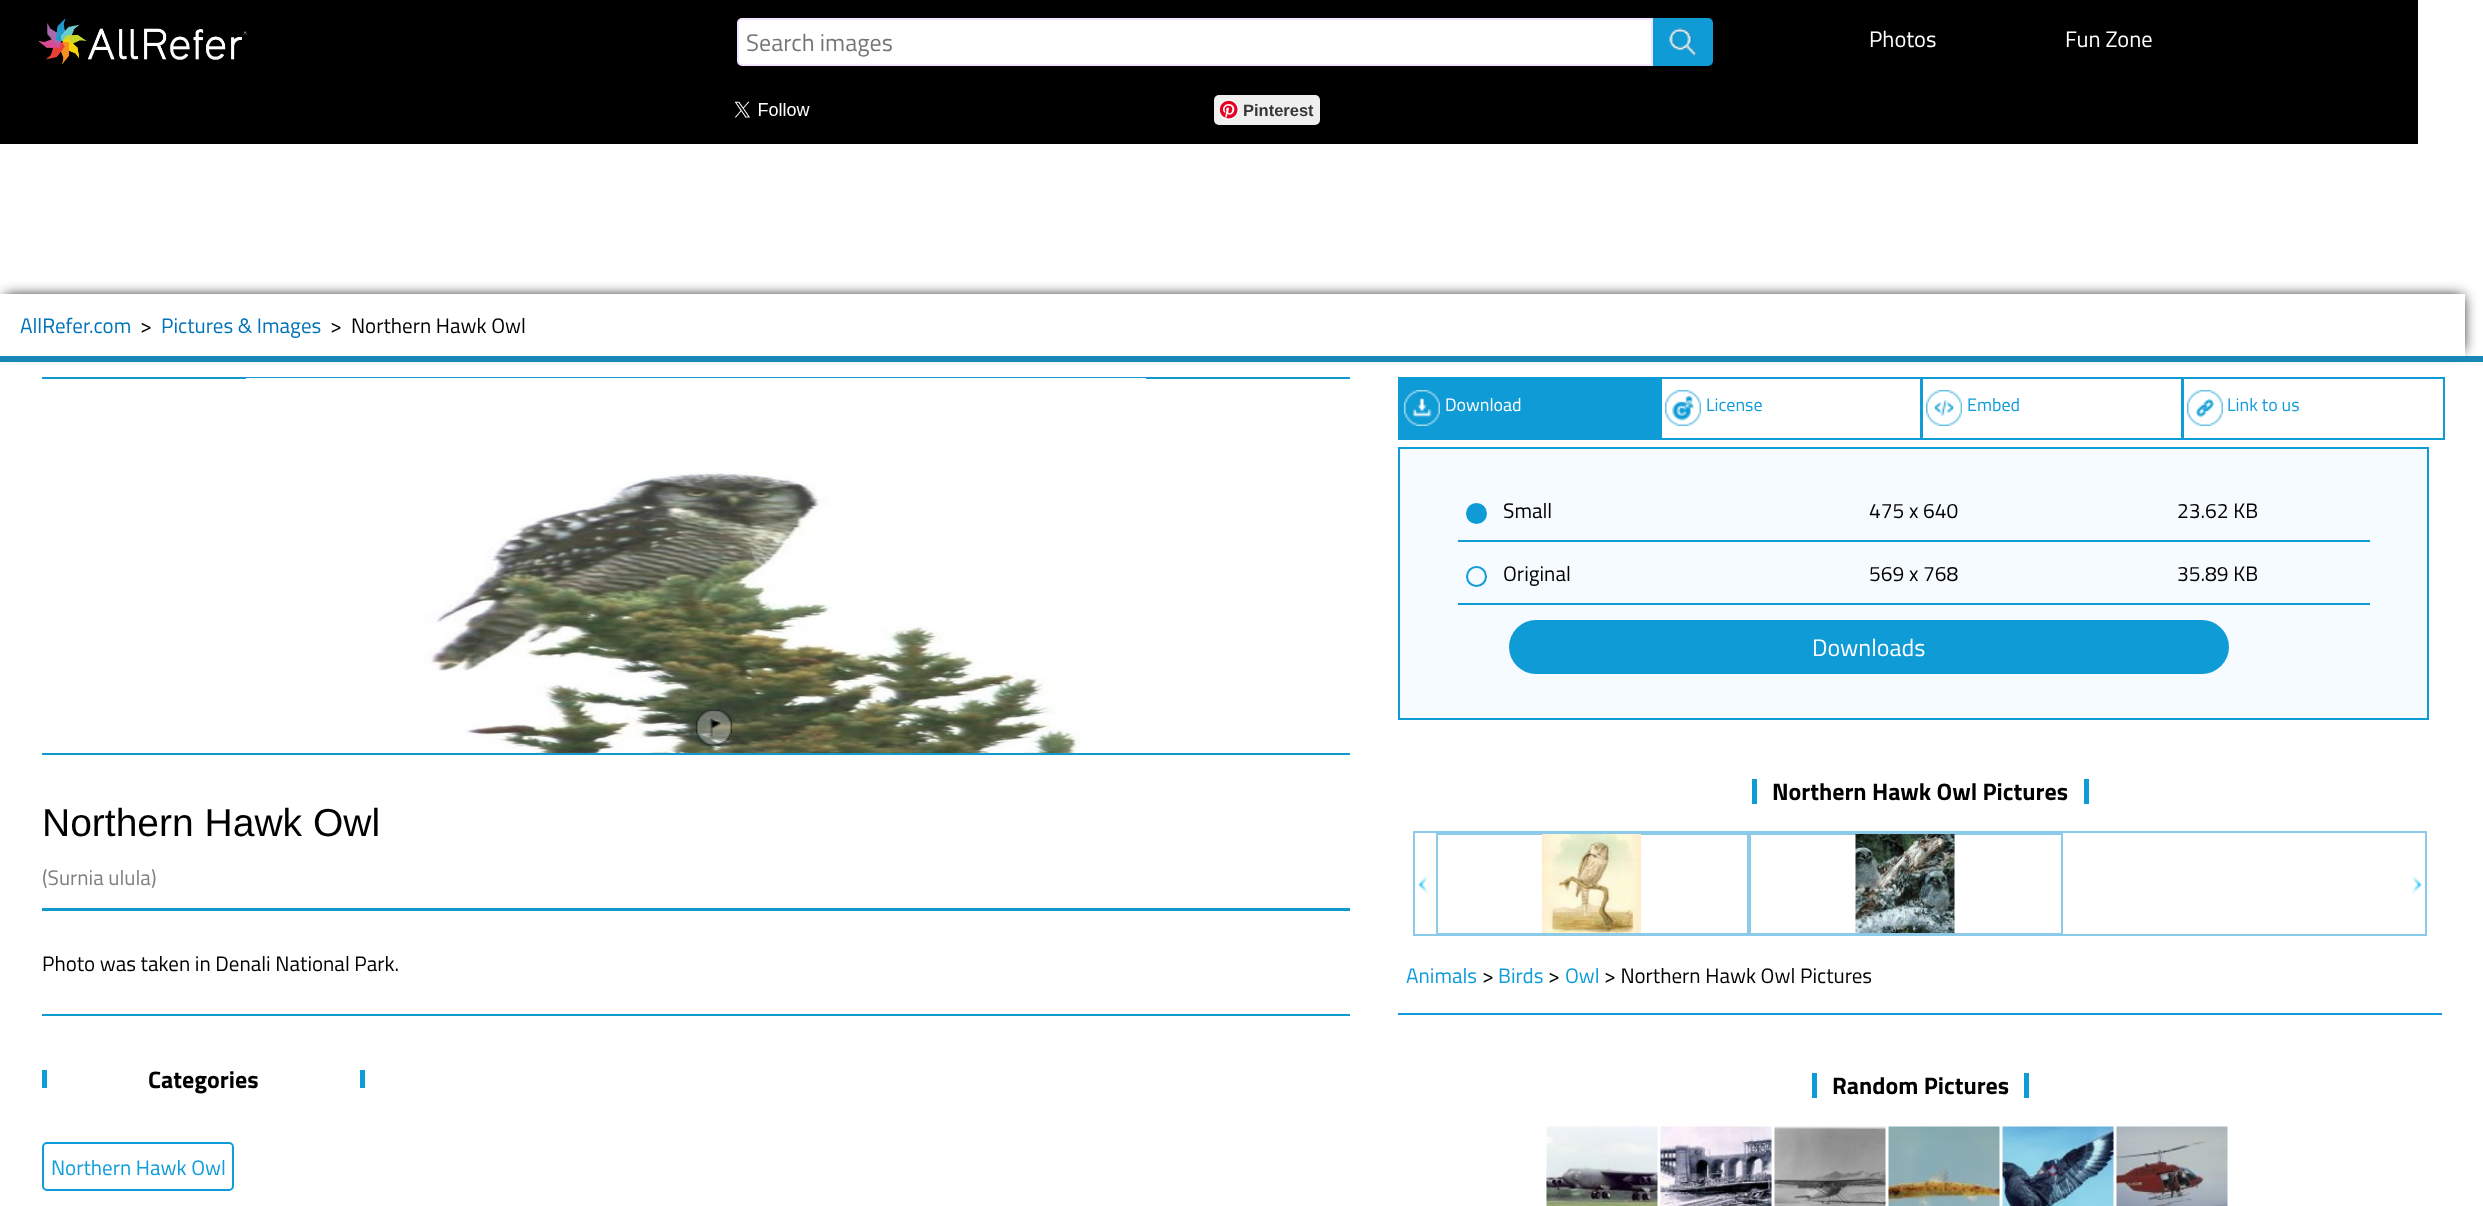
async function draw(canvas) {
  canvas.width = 2483;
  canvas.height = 1206;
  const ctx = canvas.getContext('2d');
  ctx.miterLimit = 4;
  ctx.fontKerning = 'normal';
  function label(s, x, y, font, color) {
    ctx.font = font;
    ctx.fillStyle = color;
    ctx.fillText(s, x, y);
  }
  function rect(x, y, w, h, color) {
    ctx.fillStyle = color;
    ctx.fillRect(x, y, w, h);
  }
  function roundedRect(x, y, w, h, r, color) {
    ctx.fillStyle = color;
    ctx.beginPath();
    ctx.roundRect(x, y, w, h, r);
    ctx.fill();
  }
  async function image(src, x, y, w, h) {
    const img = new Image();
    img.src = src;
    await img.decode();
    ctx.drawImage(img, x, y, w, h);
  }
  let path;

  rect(0, 0, 2483, 1206, '#fff');
  rect(0, 0, 2418, 144, '#000');
  await image('assets/img1.png', 38, 18, 210, 46);
  ctx.fillStyle = '#fff';
  ctx.beginPath();
  ctx.roundRect(738, 19, 914, 46, [4, 0, 0, 4]);
  ctx.fill();
  ctx.strokeStyle = '#f2e6ff';
  ctx.lineWidth = 2;
  ctx.stroke();
  label('Search images', 746, 51, '24px Titillium Web', '#757575');
  ctx.fillStyle = '#0f9bd6';
  ctx.beginPath();
  ctx.roundRect(1653, 18, 60, 48, [0, 5, 5, 0]);
  ctx.fill();
  await image('assets/img2.png', 1669, 28, 28, 28);
  label('Photos', 1869, 47, '22.5px Titillium Web', '#fff');
  label('Fun Zone', 2065, 47, '22.5px Titillium Web', '#fff');
  await image('assets/img3.png', 734, 101, 76, 17);
  roundedRect(1214, 95, 106, 30, 5, '#efefef');
  await image('assets/img4.png', 1218, 99, 21, 21);
  label('Pinterest', 1243, 116, 'bold 16.5px Liberation Sans', '#363636');
  ctx.save();
  path = new Path2D('M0 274H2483V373H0ZM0 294H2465V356H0Z');
  ctx.clip(path, 'evenodd');
  ctx.fillStyle = '#000';
  ctx.filter = 'blur(7px)';
  ctx.beginPath();
  ctx.rect(5, 296, 2458, 55);
  ctx.fill();
  ctx.filter = 'none';
  ctx.restore();
  label('AllRefer.com', 20, 333, '21px Titillium Web', '#0073b8');
  label('>', 140, 333, '21px Titillium Web', '#000');
  label('Pictures & Images', 161, 333, '21px Titillium Web', '#0073b8');
  label('>', 330, 333, '21px Titillium Web', '#000');
  label('Northern Hawk Owl', 351, 333, '21px Titillium Web', '#000');
  rect(0, 356, 2483, 6, '#1887b5');
  rect(42, 377, 1308, 2, '#0e9acd');
  rect(42, 753, 1308, 2, '#0e9acd');
  await image('assets/img5.png', 246, 378, 900, 375);
  await image('assets/img6.png', 696, 709, 36, 37);
  label('Northern Hawk Owl', 42, 836, '39px Liberation Sans', '#000');
  rect(42, 908, 1308, 3, '#0e9acd');
  label('(Surnia ulula)', 42, 885, '21px Titillium Web', '#808080');
  rect(42, 1014, 1308, 2, '#0e9acd');
  label('Photo was taken in Denali National Park.', 42, 971, '21px Titillium Web', '#000');
  rect(360, 1070, 5, 18, '#0e9cda');
  rect(42, 1070, 5, 18, '#0e9cda');
  label('Categories', 148, 1088, 'bold 24px Titillium Web', '#000');
  ctx.beginPath();
  ctx.roundRect(43, 1143, 190, 47, 4);
  ctx.strokeStyle = '#0e9cda';
  ctx.stroke();
  label('Northern Hawk Owl', 51, 1175, '21px Titillium Web', '#0e9cda');
  ctx.strokeStyle = '#0f9bd6';
  ctx.strokeRect(1660, 378, 262, 61);
  rect(1398, 377, 264, 63, '#0f9bd6');
  await image('assets/img7.png', 1404, 390, 36, 36);
  label('Download', 1445, 411, '18px Titillium Web', '#fff');
  await image('assets/img8.png', 1665, 390, 36, 36);
  label('License', 1706, 411, '18px Titillium Web', '#0e9cda');
  ctx.strokeRect(1921, 378, 262, 61);
  await image('assets/img9.png', 1926, 390, 36, 36);
  label('Embed', 1967, 411, '18px Titillium Web', '#0e9cda');
  ctx.strokeRect(2182, 378, 262, 61);
  await image('assets/img10.png', 2187, 390, 36, 36);
  label('Link to us', 2227, 411, '18px Titillium Web', '#0e9cda');
  ctx.fillStyle = '#f6fbff';
  ctx.beginPath();
  ctx.rect(1399, 448, 1029, 271);
  ctx.fill();
  ctx.stroke();
  rect(1458, 540, 912, 2, '#0f9bd6');
  ctx.beginPath();
  ctx.arc(1476.5, 513.5, 9.5, 0, 2 * Math.PI);
  ctx.fill();
  ctx.stroke();
  label('Small', 1503, 518, '21px Titillium Web', '#000');
  label('475 x 640', 1869, 518, '21px Titillium Web', '#000');
  label('23.62 KB', 2177, 518, '21px Titillium Web', '#000');
  rect(1458, 603, 912, 2, '#0f9bd6');
  ctx.beginPath();
  ctx.arc(1476.5, 576.5, 9.5, 0, 2 * Math.PI);
  ctx.stroke();
  label('Original', 1503, 581, '21px Titillium Web', '#000');
  label('569 x 768', 1869, 581, '21px Titillium Web', '#000');
  label('35.89 KB', 2177, 581, '21px Titillium Web', '#000');
  roundedRect(1509, 620, 720, 54, 27, '#0f9bd6');
  label('Downloads', 1812, 656, '24px Titillium Web', '#fff');
  rect(1398, 1013, 1044, 2, '#0f9bd6');
  label('Northern Hawk Owl Pictures', 1772, 800, 'bold 24px Titillium Web', '#000');
  rect(2084, 779, 5, 25, '#0f9bd6');
  rect(1752, 779, 5, 25, '#0f9bd6');
  ctx.strokeStyle = '#8bcae9';
  ctx.strokeRect(1414, 832, 1012, 103);
  await image('assets/img11.png', 1418, 875, 10, 19);
  ctx.strokeRect(1437, 834, 311, 100);
  await image('assets/img12.png', 1542, 834, 99, 99);
  ctx.strokeRect(1750, 834, 312, 100);
  await image('assets/img13.png', 1855, 834, 100, 99);
  await image('assets/img14.png', 2412, 875, 10, 19);
  label('Animals', 1406, 983, '21px Titillium Web', '#0e9cda');
  label('>', 1482, 983, '21px Titillium Web', '#000');
  label('Birds', 1498, 983, '21px Titillium Web', '#0e9cda');
  label('>', 1548, 983, '21px Titillium Web', '#000');
  label('Owl', 1565, 983, '21px Titillium Web', '#0e9cda');
  label('> Northern Hawk Owl Pictures', 1604, 983, '21px Titillium Web', '#000');
  label('Random Pictures', 1832, 1094, 'bold 24px Titillium Web', '#000');
  rect(2024, 1073, 5, 25, '#0f9bd6');
  rect(1812, 1073, 5, 25, '#0f9bd6');
  await image('assets/img15.png', 1546, 1126, 112, 80);
  await image('assets/img16.png', 1660, 1126, 112, 80);
  await image('assets/img17.png', 1774, 1126, 112, 80);
  await image('assets/img18.png', 1888, 1126, 112, 80);
  await image('assets/img19.png', 2002, 1126, 112, 80);
  await image('assets/img20.png', 2116, 1126, 112, 80);
}

draw(document.querySelector('canvas'));
